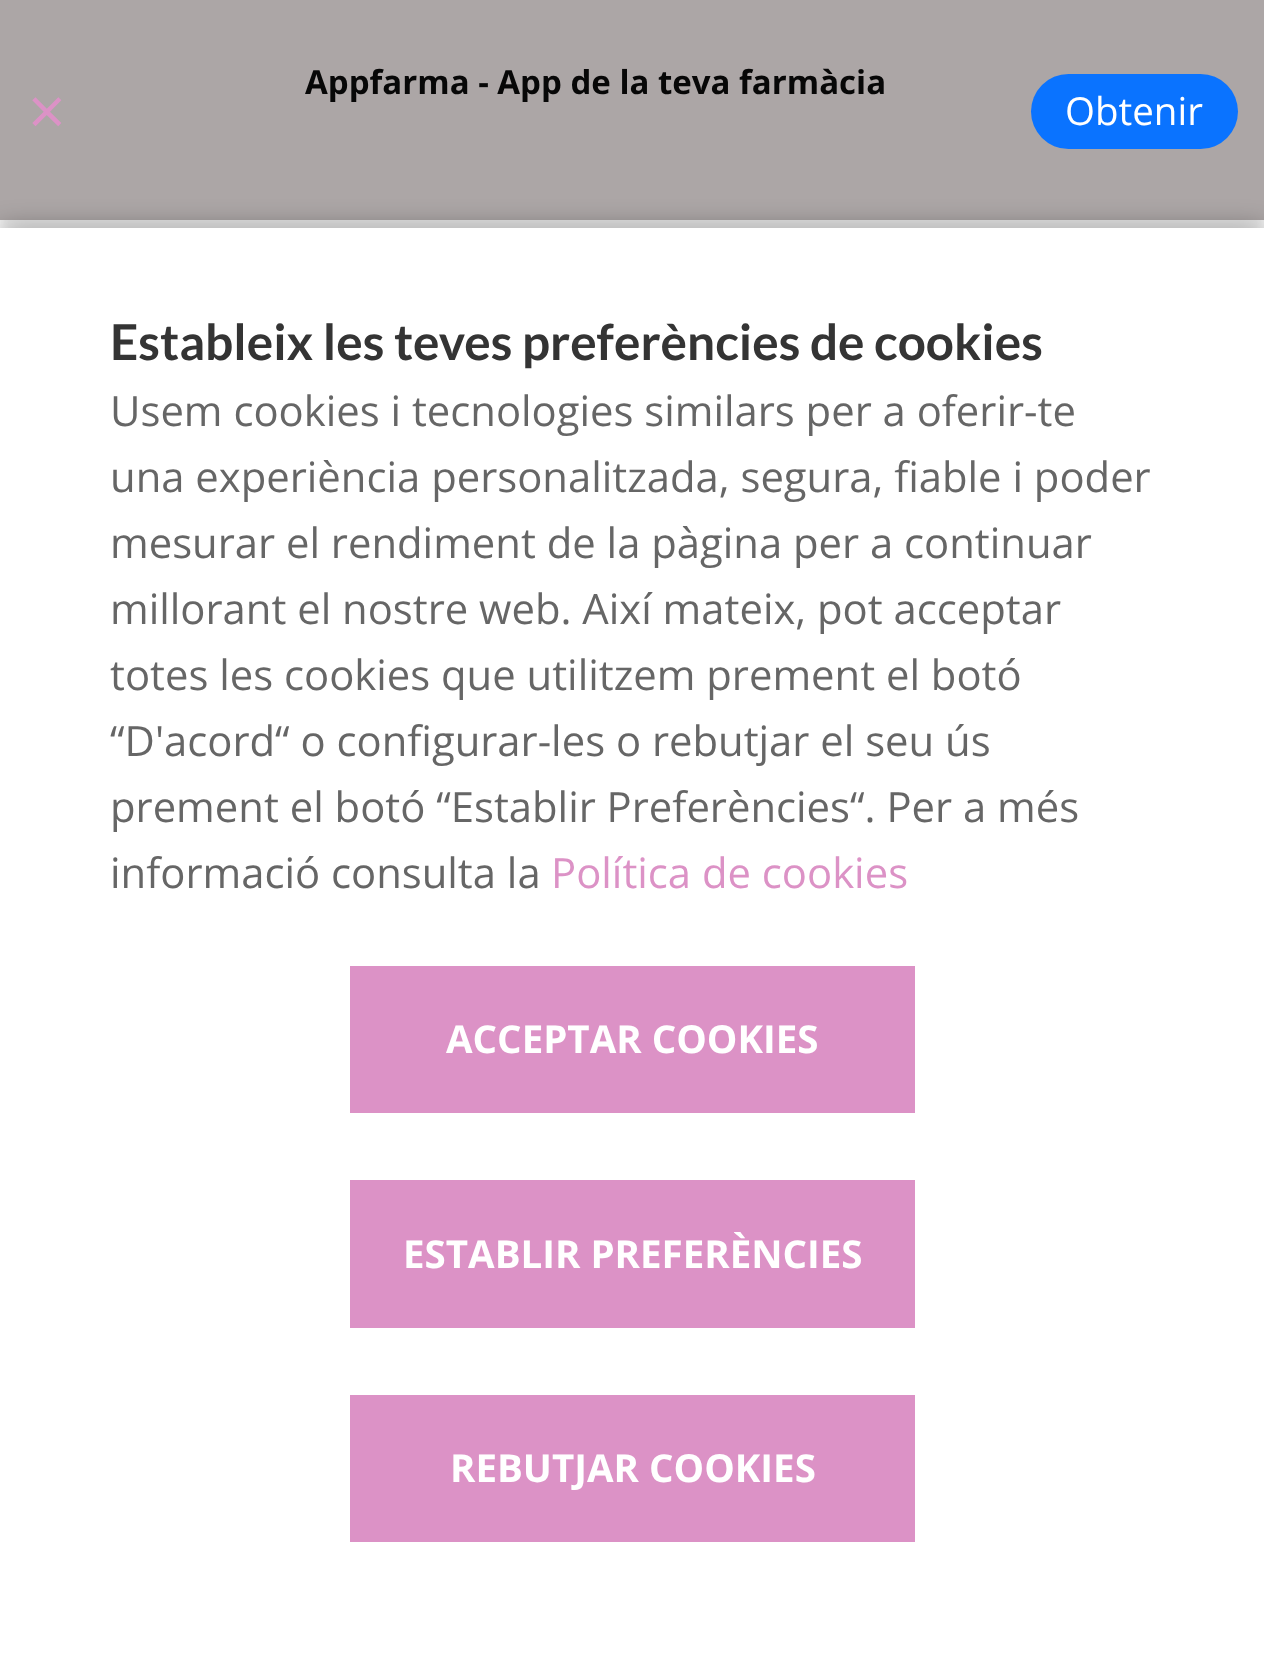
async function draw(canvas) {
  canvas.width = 1264;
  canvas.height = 1657;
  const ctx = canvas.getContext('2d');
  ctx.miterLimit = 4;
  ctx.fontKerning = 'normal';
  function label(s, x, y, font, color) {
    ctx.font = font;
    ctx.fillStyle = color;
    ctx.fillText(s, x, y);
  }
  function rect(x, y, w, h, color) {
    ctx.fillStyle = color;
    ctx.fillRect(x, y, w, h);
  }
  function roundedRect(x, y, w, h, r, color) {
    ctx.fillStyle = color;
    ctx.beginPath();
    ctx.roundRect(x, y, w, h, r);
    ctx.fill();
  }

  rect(0, 0, 1264, 1657, '#fff');
  ctx.fillStyle = '#0000001a';
  ctx.filter = 'blur(5.5px)';
  ctx.beginPath();
  ctx.rect(0, 6, 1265, 220);
  ctx.fill();
  ctx.filter = 'none';
  rect(0, 0, 1264, 220, '#aca6a6');
  label('Appfarma - App de la teva farmàcia', 305, 94, 'bold 33px Open Sans', '#070707');
  label('×', 28, 135, '66px Open Sans', '#dc92c6');
  roundedRect(1031, 74, 207, 75, 37.5, '#0a73ff');
  label('Obtenir', 1065, 125, '38.5px Open Sans', '#fff');
  ctx.fillStyle = '#00000080';
  ctx.filter = 'blur(14px)';
  ctx.beginPath();
  ctx.rect(0, 231, 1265, 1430);
  ctx.fill();
  ctx.filter = 'none';
  rect(0, 228, 1264, 1429, '#fff');
  label('Estableix les teves preferències de cookies', 110, 360, 'bold 49.5px Lato', '#343434');
  label('Usem cookies i tecnologies similars per a oferir-te', 110, 426, '41.8px Open Sans', '#666');
  label('una experiència personalitzada, segura, fiable i poder', 110, 492, '41.8px Open Sans', '#666');
  label('mesurar el rendiment de la pàgina per a continuar', 110, 558, '41.8px Open Sans', '#666');
  label('millorant el nostre web. Així mateix, pot acceptar', 110, 624, '41.8px Open Sans', '#666');
  label('totes les cookies que utilitzem prement el botó', 110, 690, '41.8px Open Sans', '#666');
  label('“D\'acord“ o configurar-les o rebutjar el seu ús', 110, 756, '41.8px Open Sans', '#666');
  label('prement el botó “Establir Preferències“. Per a més', 110, 822, '41.8px Open Sans', '#666');
  label('informació consulta la', 110, 888, '41.8px Open Sans', '#666');
  label('Política de cookies', 551, 888, '41.8px Open Sans', '#dc92c6');
  rect(350, 966, 565, 147, '#dc92c6');
  label('ACCEPTAR COOKIES', 446, 1053, 'bold 38.5px Open Sans', '#fff');
  rect(350, 1180, 565, 148, '#dc92c6');
  label('ESTABLIR PREFERÈNCIES', 403, 1268, 'bold 38.5px Open Sans', '#fff');
  rect(350, 1395, 565, 147, '#dc92c6');
  label('REBUTJAR COOKIES', 450, 1482, 'bold 38.5px Open Sans', '#fff');
}

draw(document.querySelector('canvas'));
